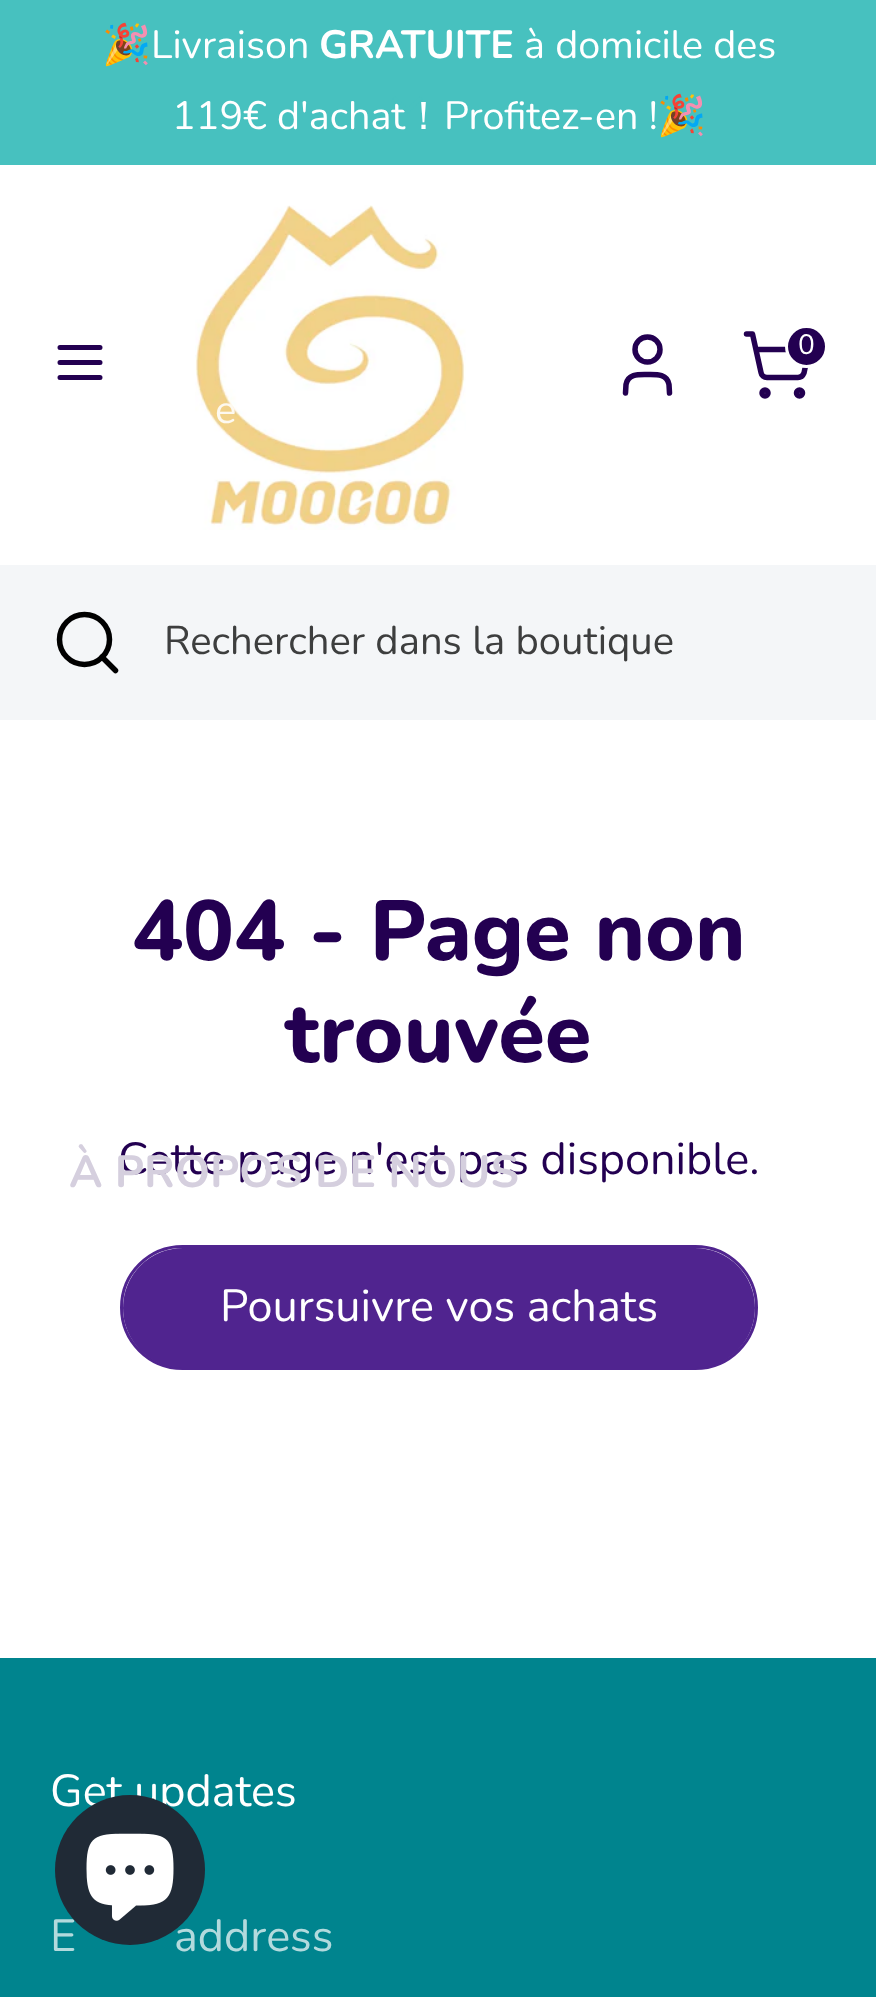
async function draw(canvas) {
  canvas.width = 876;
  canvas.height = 1997;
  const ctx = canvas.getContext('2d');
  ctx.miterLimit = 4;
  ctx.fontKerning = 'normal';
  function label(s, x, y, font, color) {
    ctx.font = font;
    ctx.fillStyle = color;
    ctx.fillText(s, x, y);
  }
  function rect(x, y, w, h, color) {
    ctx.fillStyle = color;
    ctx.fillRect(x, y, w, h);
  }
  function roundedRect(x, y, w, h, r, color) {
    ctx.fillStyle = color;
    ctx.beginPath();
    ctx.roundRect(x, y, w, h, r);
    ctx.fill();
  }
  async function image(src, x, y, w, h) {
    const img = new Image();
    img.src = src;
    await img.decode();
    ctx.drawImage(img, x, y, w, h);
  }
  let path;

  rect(0, 0, 876, 1997, '#fff');
  rect(0, 0, 876, 165, '#47c1bf');
  label('🎉', 102, 58, '39.5px Noto Color Emoji', '#fff');
  label('Livraison', 151, 58, '39.5px Nunito', '#fff');
  label('GRATUITE', 319, 58, 'bold 39.5px Nunito', '#fff');
  label('à domicile des', 524, 58, '39.5px Nunito', '#fff');
  label('119€ d\'achat', 172, 129, '39.5px Nunito', '#fff');
  label('！', 404, 129, '500 39.5px WenQuanYi Zen Hei', '#fff');
  label('Profitez-en !', 444, 129, '39.5px Nunito', '#fff');
  label('🎉', 657, 129, '39.5px Noto Color Emoji', '#fff');
  path = new Path2D('M60 362.5H100M60 347.5H100M60 377.5H100');
  ctx.strokeStyle = '#230051';
  ctx.lineWidth = 5;
  ctx.lineCap = 'round';
  ctx.lineJoin = 'round';
  ctx.stroke(path);
  await image('assets/img1.png', 195, 205, 271, 325);
  path = new Path2D('M669.5 393L669 384.5C667 373.5 656 374.5 647.5 374.5C639 374.5 628 373.5 626 384.5L625.5 393');
  ctx.lineWidth = 5.5;
  ctx.stroke(path);
  ctx.beginPath();
  ctx.arc(647.5, 349.5, 12.5, 0, 2 * Math.PI);
  ctx.stroke();
  ctx.beginPath();
  ctx.arc(765, 393, 3, 0, 2 * Math.PI);
  ctx.stroke();
  ctx.beginPath();
  ctx.arc(799.5, 393, 3, 0, 2 * Math.PI);
  ctx.stroke();
  path = new Path2D('M746.5 334H752.5L761 372.5C761.5 375.5 764 377.5 767 377.5H798C800.5 377.5 803 375.5 804 373L809 349.5H756');
  ctx.stroke(path);
  ctx.fillStyle = '#230051';
  ctx.beginPath();
  ctx.arc(806.5, 346.5, 20, 0, 2 * Math.PI);
  ctx.fill();
  ctx.strokeStyle = '#fff';
  ctx.lineWidth = 3;
  ctx.stroke();
  label('0', 798, 354, '28px Nunito', '#fff');
  path = new Path2D('M395 99L407.5 111L420 99');
  ctx.strokeStyle = '#47c1bf';
  ctx.lineWidth = 4.2;
  ctx.lineJoin = 'miter';
  ctx.stroke(path);
  label('e', 215, 423, '40px Nunito', '#fdf9f0');
  label('Cette page n\'est pas disponible.', 118, 1174, '45px Nunito', '#230051');
  label('À PROPOS DE NOUS', 69, 1187, 'bold 45px Nunito', '#d5cfde');
  rect(0, 565, 876, 155, '#f4f6f8');
  ctx.beginPath();
  ctx.arc(84.5, 639.5, 25, 0, 2 * Math.PI);
  ctx.strokeStyle = '#000';
  ctx.lineWidth = 5.5;
  ctx.stroke();
  path = new Path2D('M115.5 670.5L102 657');
  ctx.lineJoin = 'round';
  ctx.stroke(path);
  label('Rechercher dans la boutique', 164, 654, '40px Nunito', '#3d3e3e');
  label('404 - Page non', 132, 960, '800 85px Nunito', '#230051');
  label('trouvée', 285, 1062, '800 85px Nunito', '#230051');
  ctx.beginPath();
  ctx.roundRect(121.5, 1246.5, 635, 122, 61);
  ctx.strokeStyle = '#50248f';
  ctx.lineWidth = 3;
  ctx.lineJoin = 'miter';
  ctx.stroke();
  roundedRect(123, 1248, 632, 120, 60, '#50248f');
  label('Poursuivre vos achats', 220, 1321, '45px Nunito', '#fff');
  rect(0, 1658, 876, 339, '#00848e');
  label('Get updates', 50, 1806, '45px Nunito', '#fff');
  label('E', 50, 1951, '45px Nunito', '#b3dadd');
  label('address', 174, 1951, '45px Nunito', '#b3dadd');
  ctx.fillStyle = '#202a36';
  ctx.beginPath();
  ctx.arc(130, 1870, 75, 0, 2 * Math.PI);
  ctx.fill();
  await image('assets/img2.png', 86, 1833, 88, 88);
}

draw(document.querySelector('canvas'));
